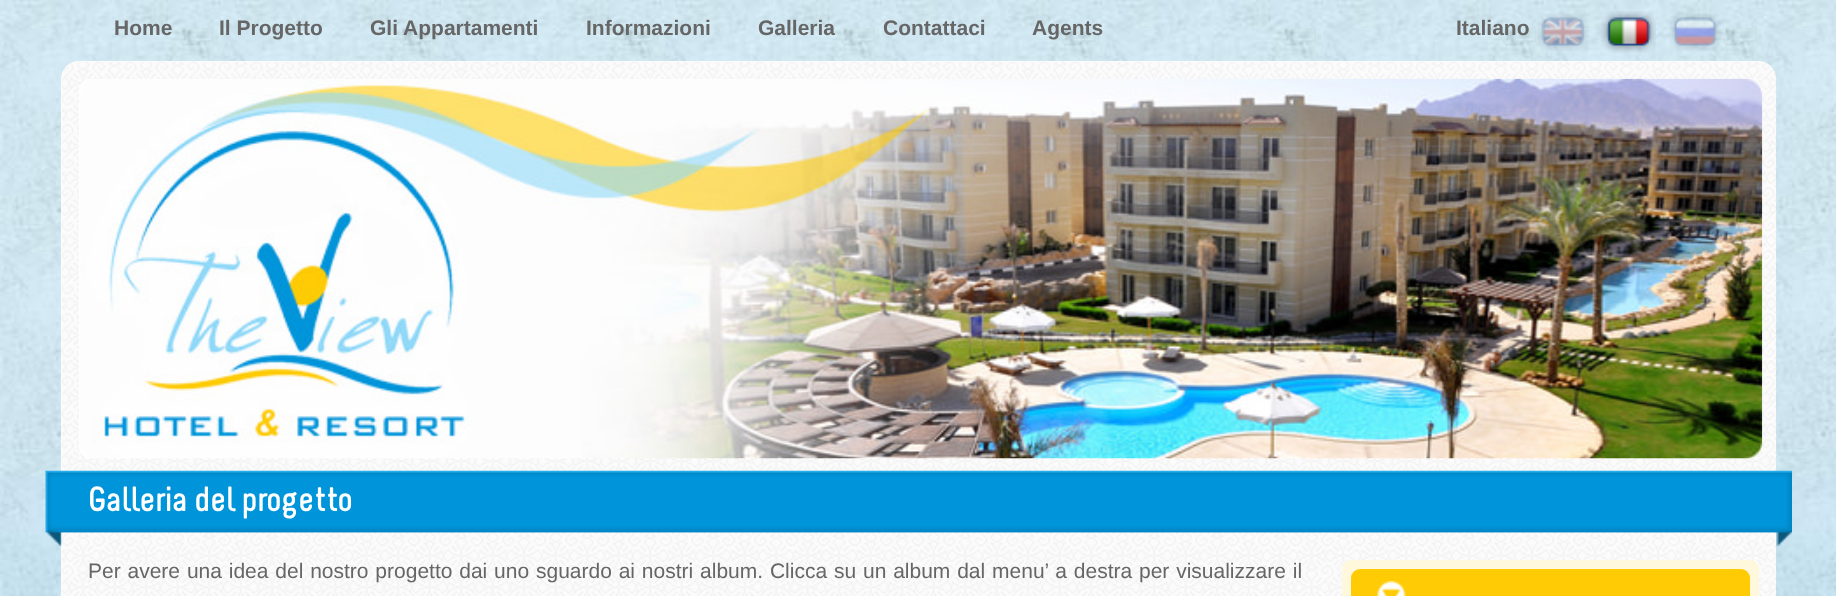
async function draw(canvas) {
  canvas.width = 1836;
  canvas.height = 596;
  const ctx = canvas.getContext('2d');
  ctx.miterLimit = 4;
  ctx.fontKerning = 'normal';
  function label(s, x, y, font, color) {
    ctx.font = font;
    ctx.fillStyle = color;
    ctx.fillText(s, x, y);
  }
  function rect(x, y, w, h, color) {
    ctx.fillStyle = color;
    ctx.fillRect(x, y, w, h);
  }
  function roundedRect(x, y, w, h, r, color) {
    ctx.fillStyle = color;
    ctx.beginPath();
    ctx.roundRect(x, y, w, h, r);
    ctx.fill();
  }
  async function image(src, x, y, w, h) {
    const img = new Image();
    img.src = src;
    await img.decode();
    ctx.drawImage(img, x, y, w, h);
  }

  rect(0, 0, 1836, 596, '#fff');
  await image('assets/img1.png', 0, 0, 1836, 596);
  label('Home', 114, 35, 'bold 21px Liberation Sans', '#666');
  label('Il Progetto', 219, 35, 'bold 21px Liberation Sans', '#666');
  label('Gli Appartamenti', 370, 35, 'bold 21px Liberation Sans', '#666');
  label('Informazioni', 586, 35, 'bold 21px Liberation Sans', '#666');
  label('Galleria', 758, 35, 'bold 21px Liberation Sans', '#666');
  label('Contattaci', 883, 35, 'bold 21px Liberation Sans', '#666');
  label('Agents', 1032, 35, 'bold 21px Liberation Sans', '#666');
  label('Italiano', 1456, 35, 'bold 21px Liberation Sans', '#666');
  await image('assets/img2.png', 1537, 13, 52, 38);
  await image('assets/img3.png', 1601, 11, 55, 42);
  await image('assets/img4.png', 1669, 13, 52, 38);
  roundedRect(61, 61, 1715, 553, 18, '#fff');
  await image('assets/img5.png', 61, 61, 1715, 535);
  await image('assets/img6.png', 79, 78, 1684, 381);
  await image('assets/img7.png', 45, 470, 1747, 76);
  label('Galleria del progetto', 88, 511, 'bold 35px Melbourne', '#fff');
  ctx.wordSpacing = '1px';
  label('Per avere una idea del nostro progetto dai uno sguardo ai nostri album. Clicca su un album dal menu’ a destra per visualizzare il', 88, 578, '21px Liberation Sans', '#666');
  roundedRect(1342, 560, 417, 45, 9, '#fff8dc');
  roundedRect(1351, 569, 399, 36, 9, '#ffcb05');
  await image('assets/img8.png', 1377, 581, 29, 15);
}

draw(document.querySelector('canvas'));
